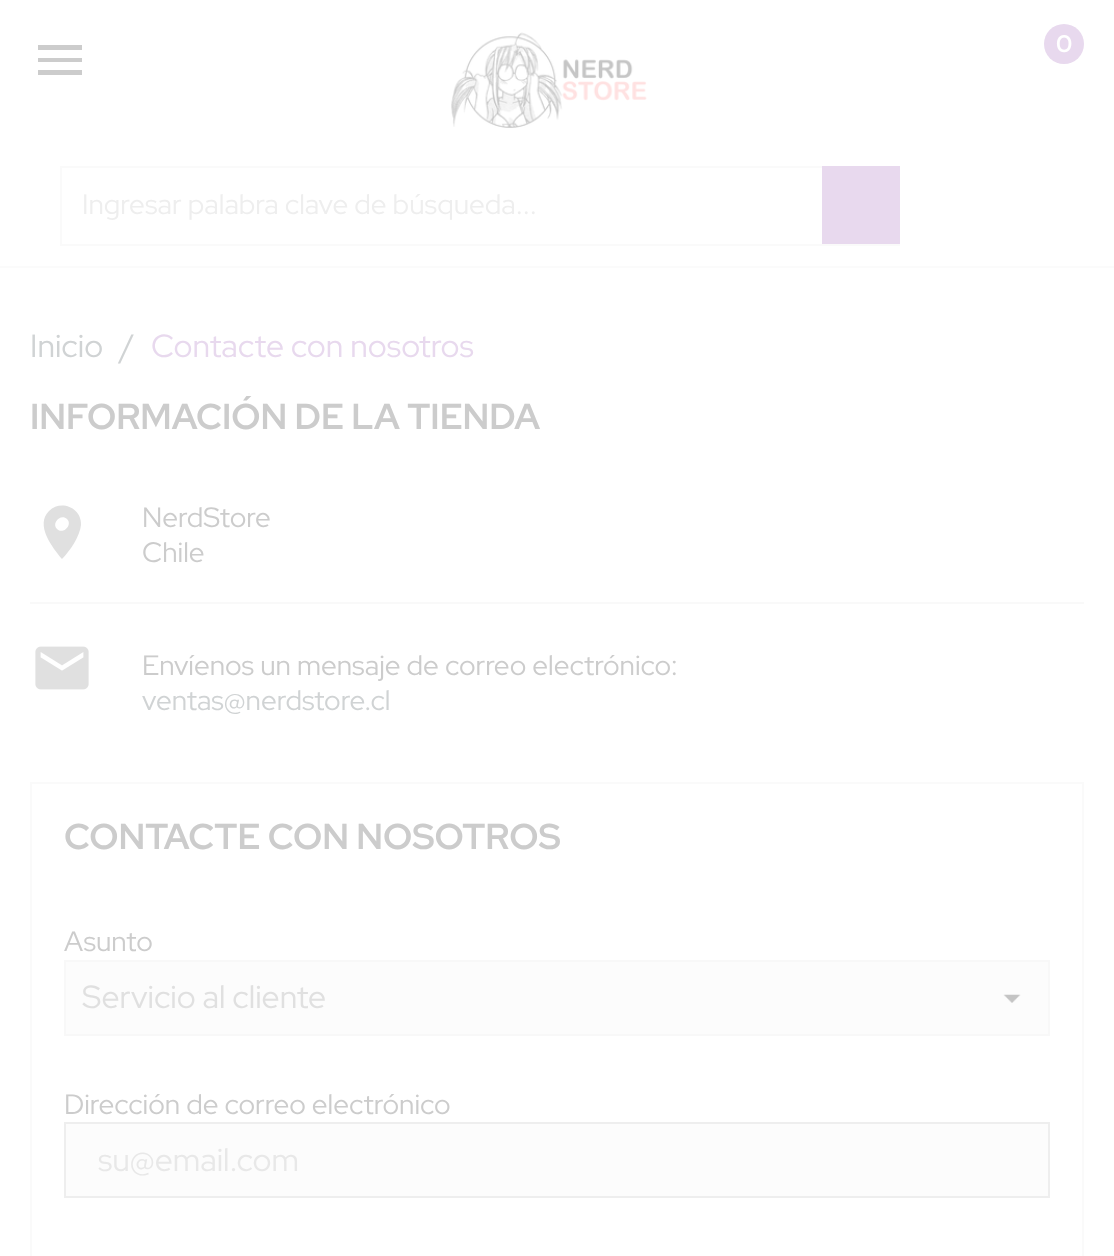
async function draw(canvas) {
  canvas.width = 1114;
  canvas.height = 1256;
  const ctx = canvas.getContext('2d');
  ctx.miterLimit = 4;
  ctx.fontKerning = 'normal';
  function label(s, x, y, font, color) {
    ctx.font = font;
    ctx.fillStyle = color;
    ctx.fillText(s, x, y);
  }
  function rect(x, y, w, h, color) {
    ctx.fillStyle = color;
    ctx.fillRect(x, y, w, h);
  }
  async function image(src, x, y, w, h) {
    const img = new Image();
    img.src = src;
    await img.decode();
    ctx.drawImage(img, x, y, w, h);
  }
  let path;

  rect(0, 0, 1114, 1256, '#fff');
  ctx.fillStyle = '#ccc';
  path = new Path2D('M38 45H82V50H38ZM38 62V58H82V62ZM38 75V70H82V75Z');
  ctx.fill(path);
  await image('assets/img1.png', 451, 32, 196, 96);
  ctx.fillStyle = '#e8d9ee';
  ctx.beginPath();
  ctx.arc(1064, 44, 20, 0, 2 * Math.PI);
  ctx.fill();
  label('0', 1056, 52, 'bold 24px Red Hat Display', '#fff');
  ctx.strokeStyle = '#fafafa';
  ctx.lineWidth = 2;
  ctx.strokeRect(61, 167, 838, 78);
  label('Ingresar palabra clave de búsqueda...', 82, 214, '28px Red Hat Display', '#eee');
  rect(822, 166, 78, 78, '#e8d9ee');
  rect(0, 266, 1114, 2, '#fbfbfb');
  label('Inicio', 30, 357, '32px Red Hat Display', '#d0d3d4');
  label('/', 120, 357, '32px Red Hat Display', '#d0d3d4');
  label('Contacte con nosotros', 151, 357, '32px Red Hat Display', '#e8d9ee');
  label('INFORMACIÓN DE LA TIENDA', 30, 429, 'bold 36px Red Hat Display', '#ccc');
  ctx.fillStyle = '#e0e0e0';
  path = new Path2D('M57 529C63 535 73 525 67 519C61 513 51 523 57 529ZM49 511C61 499 82 508 81 525C80 536 70 551 62 559C52 547 35 525 49 511Z');
  ctx.fill(path);
  label('NerdStore', 142, 527, '28px Red Hat Display', '#ccc');
  label('Chile', 142, 562, '28px Red Hat Display', '#ccc');
  rect(30, 602, 1054, 2, '#f9f9f9');
  await image('assets/img2.png', 35, 646, 54, 44);
  label('Envíenos un mensaje de correo electrónico:', 142, 675, '28px Red Hat Display', '#ccc');
  label('ventas@nerdstore.cl', 142, 710, '28px Red Hat Display', '#d0d3d4');
  ctx.strokeRect(31, 783, 1052, 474);
  label('CONTACTE CON NOSOTROS', 64, 849, 'bold 36px Red Hat Display', '#ccc');
  label('Asunto', 64, 951, '28px Red Hat Display', '#ccc');
  rect(66, 962, 982, 72, '#fcfcfc');
  await image('assets/img3.png', 1003, 994, 18, 9);
  ctx.strokeStyle = '#f8f8f8';
  ctx.strokeRect(65, 961, 984, 74);
  label('Servicio al cliente', 82, 1008, '32px Red Hat Display', '#e0e0e0');
  label('Dirección de correo electrónico', 64, 1114, '28px Red Hat Display', '#ccc');
  ctx.fillStyle = '#fcfcfc';
  ctx.beginPath();
  ctx.rect(65, 1123, 984, 74);
  ctx.fill();
  ctx.strokeStyle = '#eee';
  ctx.stroke();
  label('su@email.com', 98, 1171, '32px Red Hat Display', '#e8e8e8');
}

draw(document.querySelector('canvas'));
